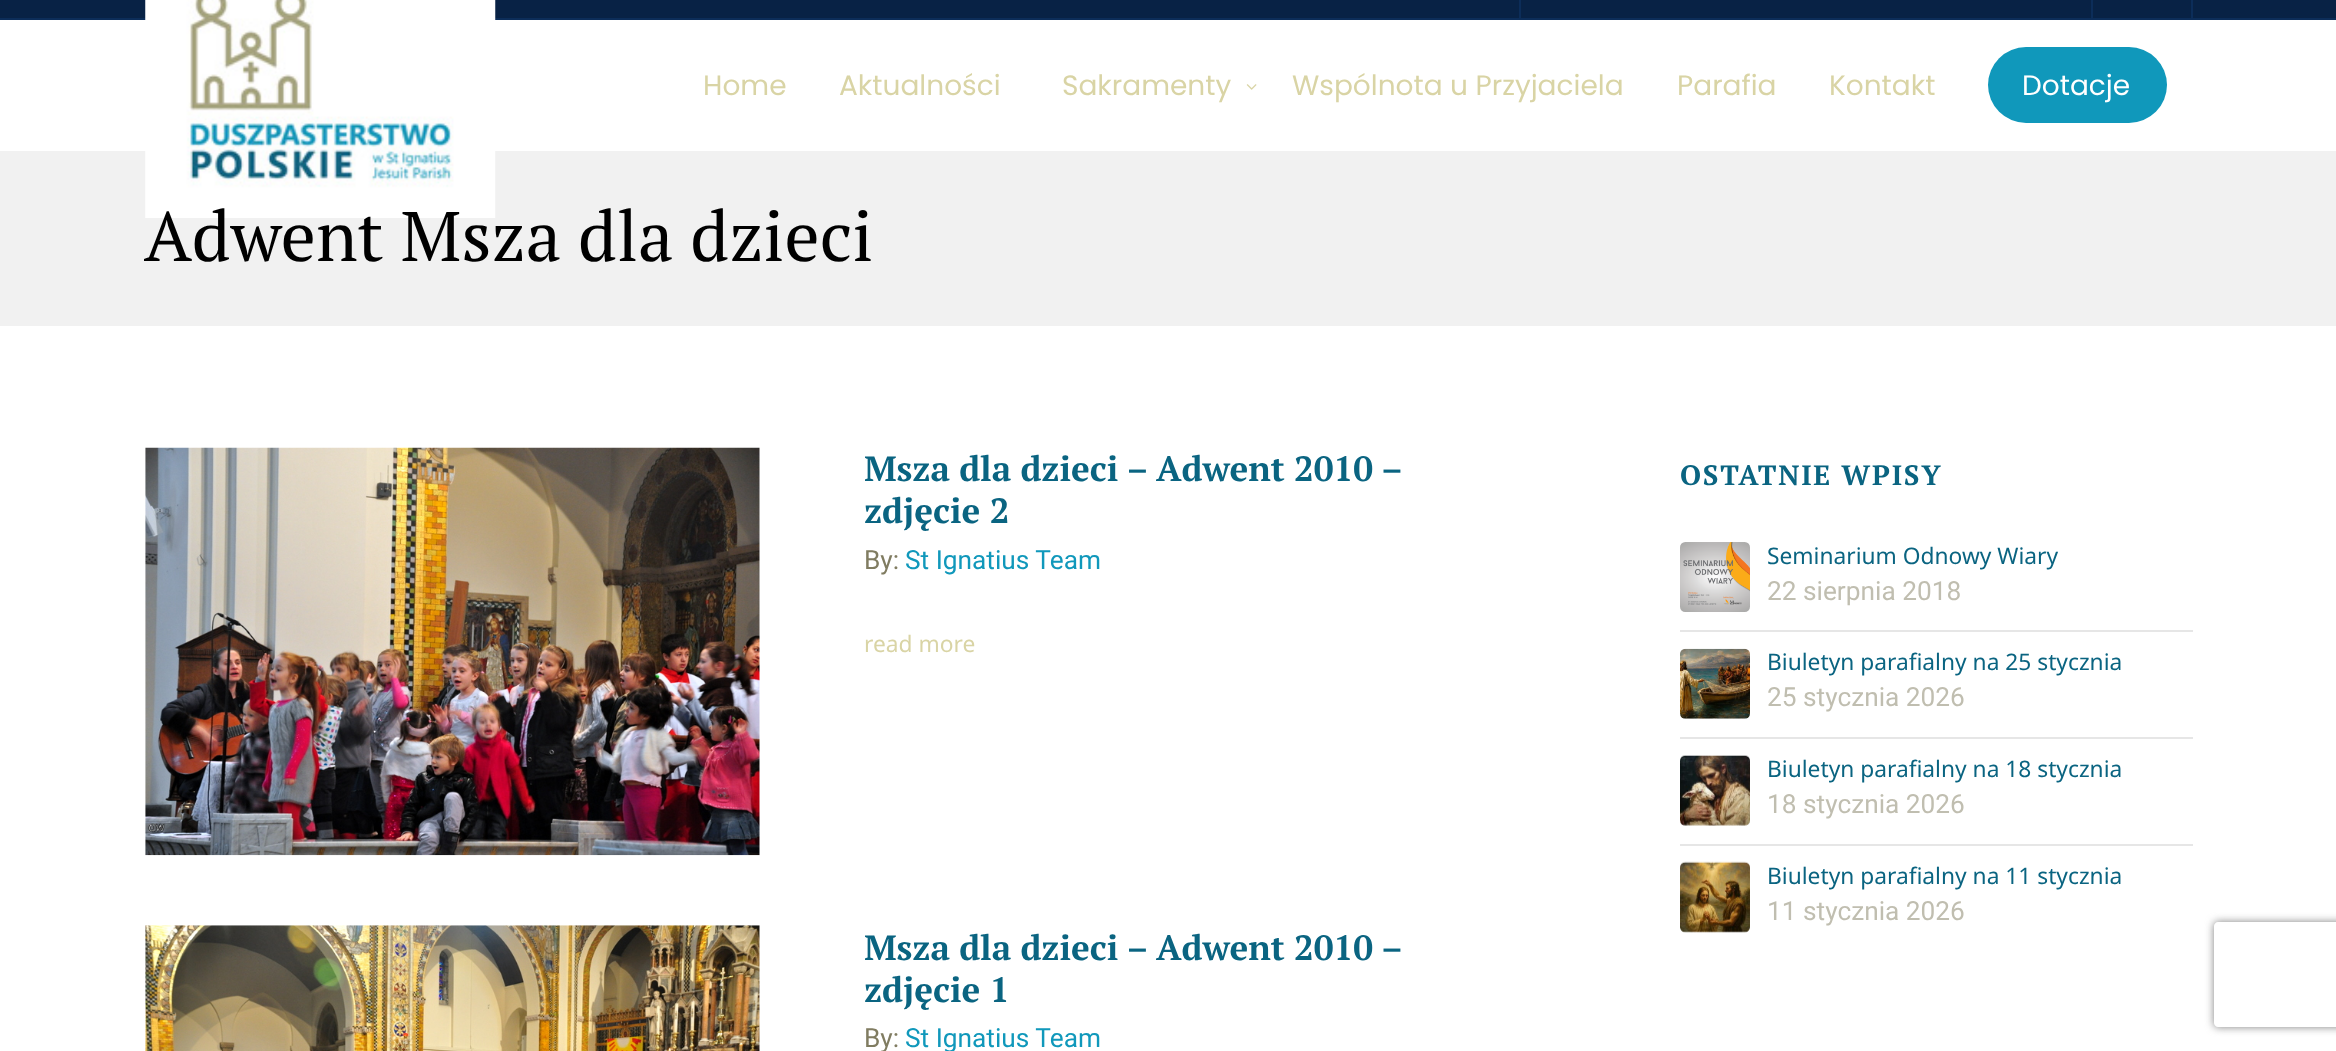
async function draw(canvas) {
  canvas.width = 2336;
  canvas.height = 1051;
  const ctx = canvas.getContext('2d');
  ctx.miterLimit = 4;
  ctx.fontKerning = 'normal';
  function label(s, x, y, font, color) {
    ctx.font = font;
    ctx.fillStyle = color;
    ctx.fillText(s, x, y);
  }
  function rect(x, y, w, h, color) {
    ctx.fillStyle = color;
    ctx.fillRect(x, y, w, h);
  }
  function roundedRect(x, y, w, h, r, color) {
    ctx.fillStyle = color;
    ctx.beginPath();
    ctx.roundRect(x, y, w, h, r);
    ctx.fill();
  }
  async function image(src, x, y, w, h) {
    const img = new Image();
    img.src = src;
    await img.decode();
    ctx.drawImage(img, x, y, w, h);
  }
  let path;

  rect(0, 0, 2336, 1051, '#fff');
  rect(0, 0, 2336, 18, '#082245');
  rect(0, 18, 2336, 2, '#0c2d59');
  rect(2191, 0, 2, 18, '#0c2d59');
  rect(1519, 0, 2, 18, '#0c2d59');
  rect(2091, 0, 2, 18, '#0c2d59');
  rect(0, 151, 2336, 175, '#f1f1f1');
  await image('assets/img1.png', 145, 0, 351, 218);
  label('Home', 703, 95, '28px Poppins', '#d9d4a5');
  label('Aktualności', 839, 95, '28px Poppins', '#d9d4a5');
  label('Sakramenty', 1062, 95, '28px Poppins', '#d9d4a5');
  await image('assets/img2.png', 1246, 84, 11, 6);
  label('Wspólnota u Przyjaciela', 1292, 95, '28px Poppins', '#d9d4a5');
  label('Parafia', 1677, 95, '28px Poppins', '#d9d4a5');
  label('Kontakt', 1829, 95, '28px Poppins', '#d9d4a5');
  roundedRect(1988, 47, 179, 76, 38, '#1098bb');
  label('Dotacje', 2022, 95, '28px Poppins', '#fff');
  label('Adwent Msza dla dzieci', 144, 261, '70px PT Serif', '#000');
  await image('assets/img3.png', 145, 447, 615, 409);
  ctx.save();
  ctx.beginPath();
  ctx.rect(865, 448, 645, 217);
  ctx.clip();
  ctx.wordSpacing = '-0.25px';
  label('Msza dla dzieci – Adwent 2010 –', 864, 481, 'bold 35px PT Serif', '#0a6481');
  ctx.restore();
  label('zdjęcie 2', 864, 523, 'bold 35px PT Serif', '#0a6481');
  label('By:', 864, 569, '26.25px Roboto', '#807c61');
  label('St Ignatius Team', 905, 569, '26.25px Roboto', '#1098bb');
  label('read more', 864, 652, '22.75px Noto Sans', '#d9d4a5');
  await image('assets/img4.png', 145, 925, 615, 126);
  ctx.save();
  ctx.beginPath();
  ctx.rect(865, 926, 645, 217);
  ctx.clip();
  ctx.wordSpacing = '-0.25px';
  label('Msza dla dzieci – Adwent 2010 –', 864, 960, 'bold 35px PT Serif', '#0a6481');
  ctx.restore();
  label('zdjęcie 1', 864, 1002, 'bold 35px PT Serif', '#0a6481');
  label('By:', 864, 1047, '26.25px Roboto', '#807c61');
  label('St Ignatius Team', 905, 1047, '26.25px Roboto', '#1098bb');
  ctx.letterSpacing = '1.75px';
  label('OSTATNIE WPISY', 1680, 485, 'bold 28px PT Serif', '#0a6481');
  rect(1680, 630, 513, 2, '#e6e6e6');
  await image('assets/img5.png', 1680, 542, 70, 70);
  ctx.letterSpacing = '0px';
  label('Seminarium Odnowy Wiary', 1767, 564, '22.75px Noto Sans', '#0a6481');
  label('22 sierpnia 2018', 1767, 600, '26.25px Roboto', '#c0beb0');
  rect(1680, 737, 513, 2, '#e6e6e6');
  await image('assets/img6.png', 1680, 648, 70, 71);
  label('Biuletyn parafialny na 25 stycznia', 1767, 670, '22.75px Noto Sans', '#0a6481');
  label('25 stycznia 2026', 1767, 706, '26.25px Roboto', '#c0beb0');
  rect(1680, 844, 513, 2, '#e6e6e6');
  await image('assets/img7.png', 1680, 755, 70, 71);
  label('Biuletyn parafialny na 18 stycznia', 1767, 777, '22.75px Noto Sans', '#0a6481');
  label('18 stycznia 2026', 1767, 813, '26.25px Roboto', '#c0beb0');
  await image('assets/img8.png', 1680, 861, 70, 72);
  label('Biuletyn parafialny na 11 stycznia', 1767, 884, '22.75px Noto Sans', '#0a6481');
  label('11 stycznia 2026', 1767, 920, '26.25px Roboto', '#c0beb0');
  ctx.save();
  path = new Path2D('M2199 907H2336V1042H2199ZM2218 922H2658C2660 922 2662 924 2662 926V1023C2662 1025 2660 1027 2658 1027H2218C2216 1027 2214 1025 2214 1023V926C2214 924 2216 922 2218 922Z');
  ctx.clip(path, 'evenodd');
  ctx.fillStyle = '#808080';
  ctx.filter = 'blur(4.5px)';
  ctx.beginPath();
  ctx.roundRect(2214, 922, 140, 105, 4);
  ctx.fill();
  ctx.filter = 'none';
  ctx.restore();
}

draw(document.querySelector('canvas'));
